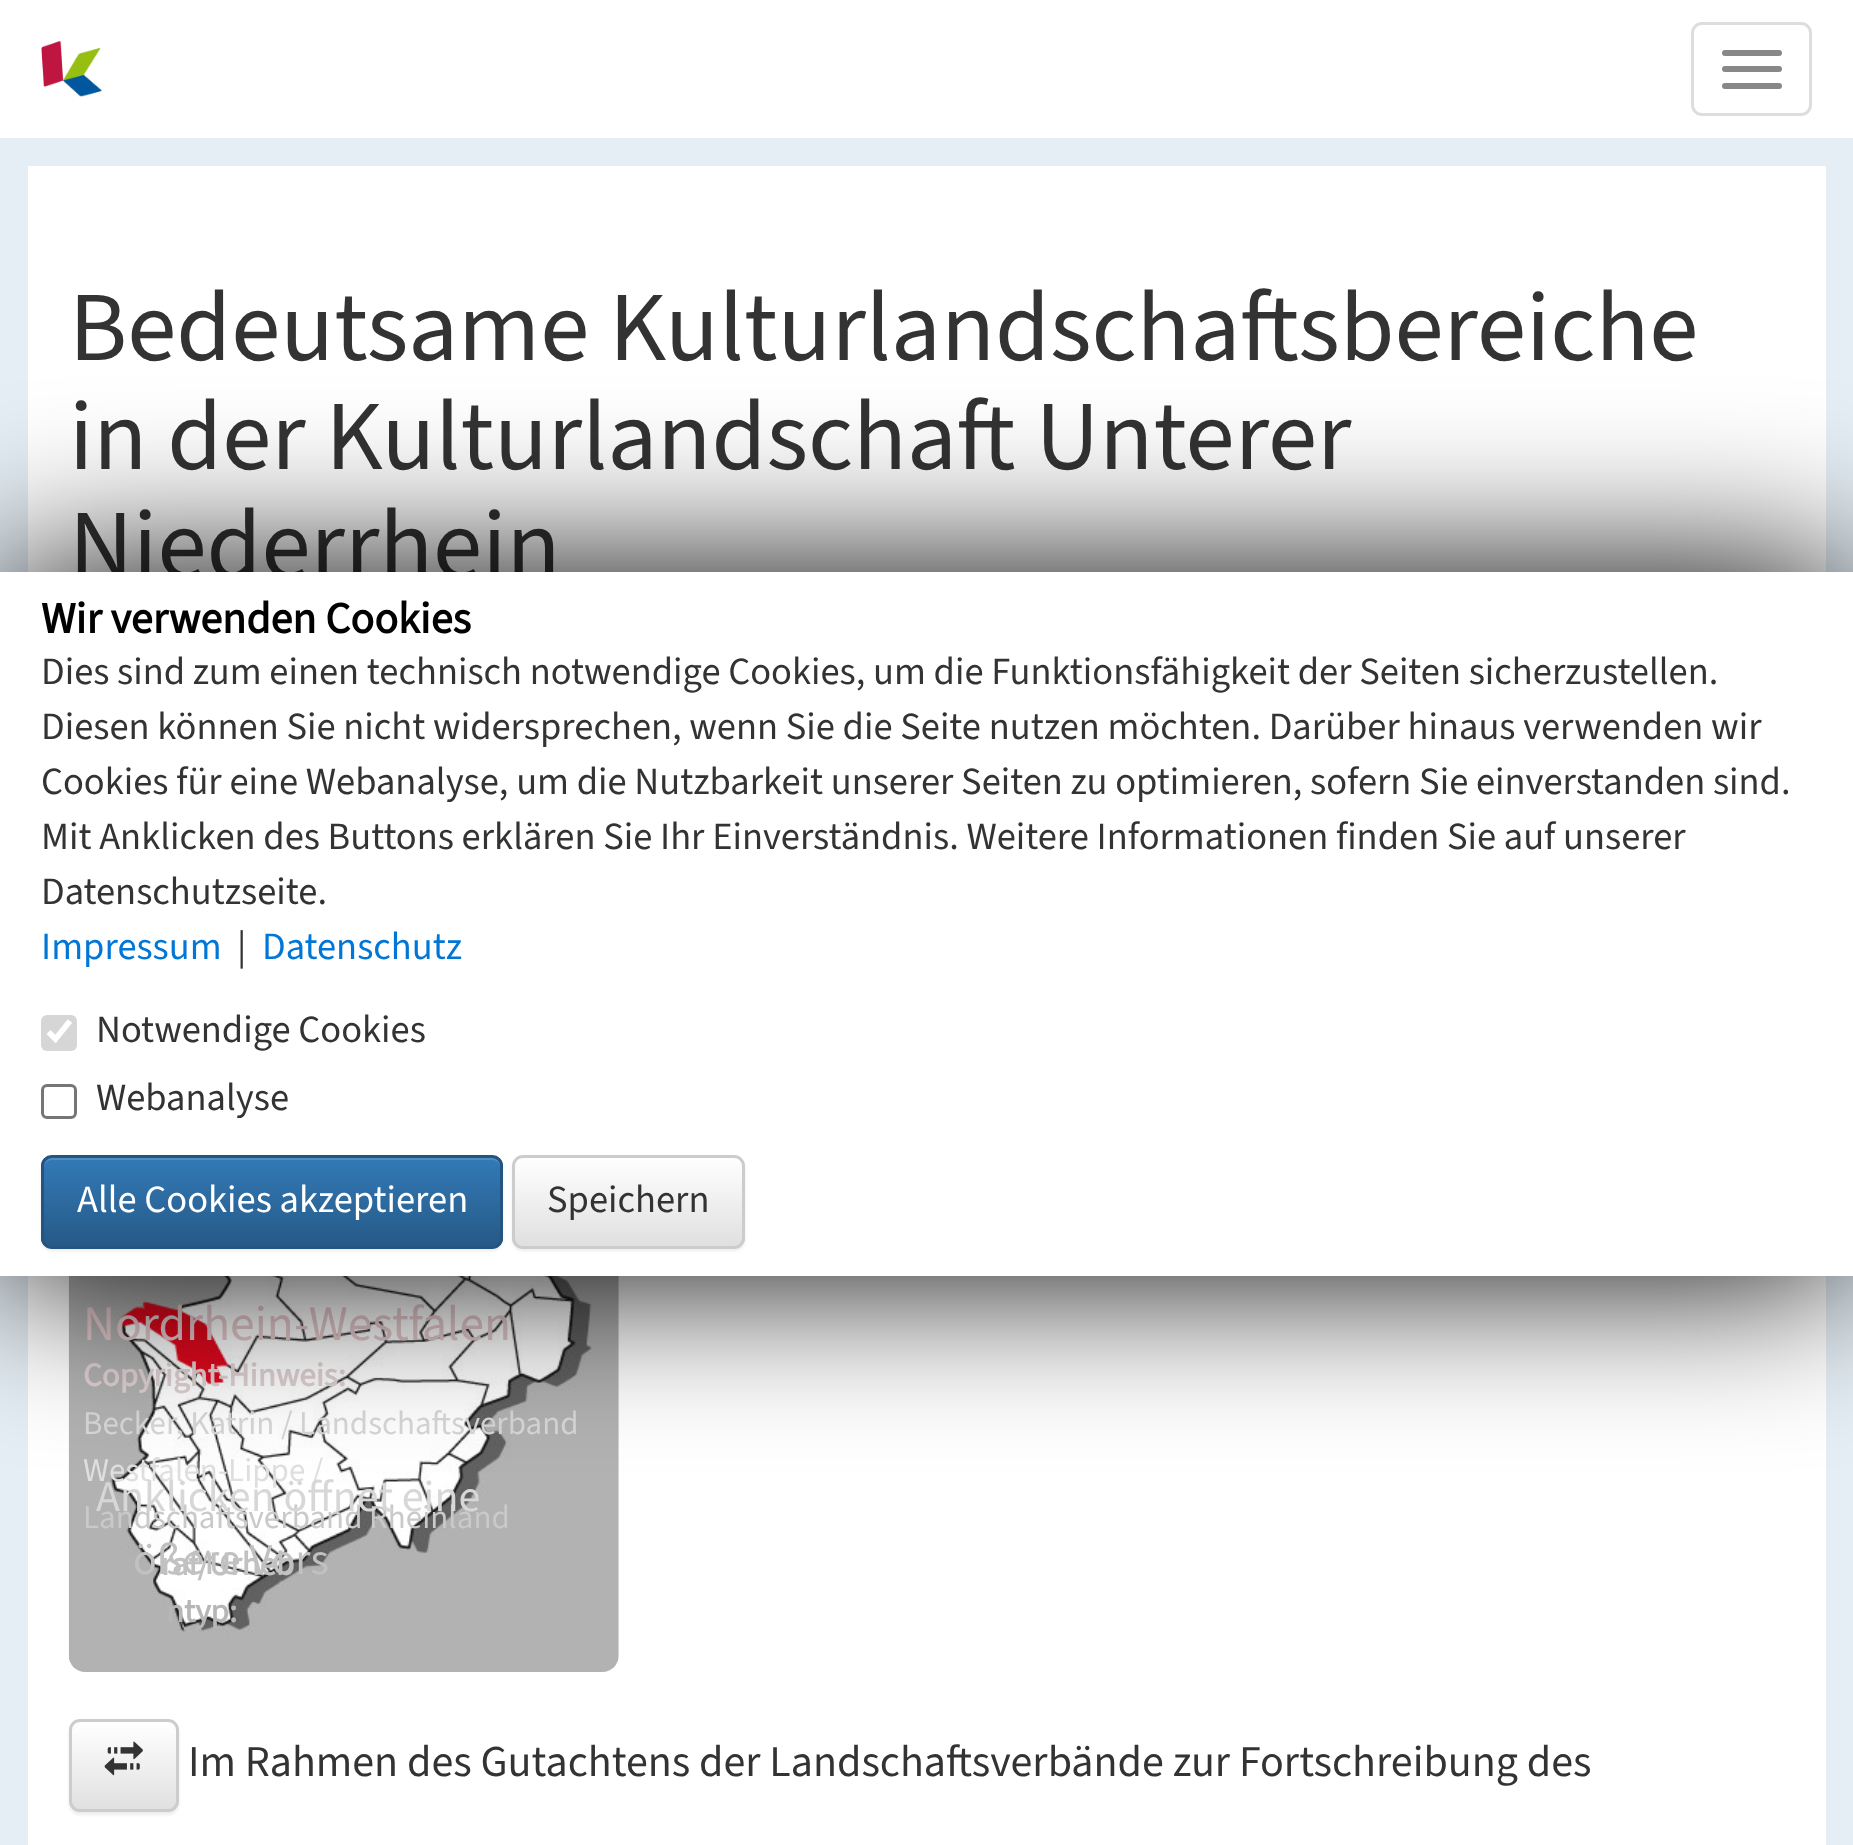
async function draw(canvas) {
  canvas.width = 1853;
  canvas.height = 1845;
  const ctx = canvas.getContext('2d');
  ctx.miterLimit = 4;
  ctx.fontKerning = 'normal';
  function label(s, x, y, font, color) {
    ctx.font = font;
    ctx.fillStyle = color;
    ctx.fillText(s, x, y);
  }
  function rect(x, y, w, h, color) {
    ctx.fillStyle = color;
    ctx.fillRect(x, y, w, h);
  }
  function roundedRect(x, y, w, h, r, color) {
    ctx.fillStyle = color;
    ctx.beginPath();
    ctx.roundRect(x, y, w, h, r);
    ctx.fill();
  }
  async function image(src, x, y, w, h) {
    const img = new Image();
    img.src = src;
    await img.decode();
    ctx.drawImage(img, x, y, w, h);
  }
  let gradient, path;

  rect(0, 0, 1853, 1845, '#e5eef5');
  rect(0, 0, 1853, 138, '#fff');
  await image('assets/img1.png', 41, 41, 61, 56);
  ctx.beginPath();
  ctx.roundRect(1692.5, 23.5, 118, 91, 9.5);
  ctx.strokeStyle = '#ddd';
  ctx.lineWidth = 3;
  ctx.stroke();
  roundedRect(1722, 50, 60, 6, 3, '#888');
  roundedRect(1722, 66, 60, 6, 3, '#888');
  roundedRect(1722, 83, 60, 6, 3, '#888');
  ctx.fillStyle = '#fff';
  ctx.beginPath();
  ctx.roundRect(14, 152, 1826, 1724, 3);
  ctx.fill();
  ctx.strokeStyle = '#e5eef5';
  ctx.lineWidth = 28;
  ctx.stroke();
  label('Bedeutsame Kulturlandschaftsbereiche', 69, 360, '99px "Source Sans 3"', '#333');
  label('in der Kulturlandschaft Unterer', 69, 469, '99px "Source Sans 3"', '#333');
  label('Niederrhein', 69, 578, '99px "Source Sans 3"', '#333');
  await image('assets/img2.png', 68, 1276, 551, 396);
  label('Nordrhein-Westfalen', 83, 1340, '49.5px "Source Sans 3"', '#e6cacd');
  label('Copyright-Hinweis:', 83, 1386, 'bold 33px "Source Sans 3"', '#e0d1d2');
  label('Becker, Katrin / Landschaftsverband', 83, 1434, '33px "Source Sans 3"', '#d7d7d7');
  label('Westfalen-Lippe /', 83, 1481, '33px "Source Sans 3"', '#dfdfdf');
  label('Landschaftsverband Rheinland', 83, 1528, '33px "Source Sans 3"', '#c9c9c9');
  label('raf/Urheb', 161, 1575, 'bold 33px "Source Sans 3"', '#c1c1c1');
  label('ntyp:', 166, 1622, 'bold 33px "Source Sans 3"', '#b7b6b7');
  label('Anklicken öffnet eine', 96, 1511, '44px "Source Sans 3"', '#d7d7d7');
  label('ößere Vors', 133, 1574, '44px "Source Sans 3"', '#c1c1c1');
  ctx.fillStyle = '#00000012';
  ctx.filter = 'blur(1.5px)';
  ctx.beginPath();
  ctx.roundRect(69, 1722, 110, 93, 11);
  ctx.fill();
  ctx.filter = 'none';
  ctx.save();
  ctx.beginPath();
  ctx.roundRect(69, 1719, 110, 93, 11);
  ctx.clip();
  gradient = ctx.createLinearGradient(124, 1722, 124, 1810);
  gradient.addColorStop(0, '#fff');
  gradient.addColorStop(1, '#e0e0e0');
  ctx.fillStyle = gradient;
  ctx.fillRect(69, 1722, 110, 88);
  ctx.restore();
  ctx.beginPath();
  ctx.roundRect(70.5, 1720.5, 107, 90, 9.5);
  ctx.strokeStyle = '#ccc';
  ctx.lineWidth = 3;
  ctx.stroke();
  await image('assets/img3.png', 104, 1741, 39, 35);
  label('Im Rahmen des Gutachtens der Landschaftsverbände zur Fortschreibung des', 188, 1776, '44px "Source Sans 3"', '#333');
  ctx.fillStyle = '#000';
  ctx.filter = 'blur(82.5px)';
  ctx.beginPath();
  ctx.rect(0, 572, 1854, 704);
  ctx.fill();
  ctx.filter = 'none';
  rect(0, 572, 1853, 704, '#fff');
  label('Wir verwenden Cookies', 41, 633, 'bold 44px "Source Sans 3"', '#000');
  label('Dies sind zum einen technisch notwendige Cookies, um die Funktionsfähigkeit der Seiten sicherzustellen.', 41, 684, '38.5px "Source Sans 3"', '#333');
  label('Diesen können Sie nicht widersprechen, wenn Sie die Seite nutzen möchten. Darüber hinaus verwenden wir', 41, 739, '38.5px "Source Sans 3"', '#333');
  label('Cookies für eine Webanalyse, um die Nutzbarkeit unserer Seiten zu optimieren, sofern Sie einverstanden sind.', 41, 794, '38.5px "Source Sans 3"', '#333');
  label('Mit Anklicken des Buttons erklären Sie Ihr Einverständnis. Weitere Informationen finden Sie auf unserer', 41, 849, '38.5px "Source Sans 3"', '#333');
  label('Datenschutzseite.', 41, 904, '38.5px "Source Sans 3"', '#333');
  label('Impressum', 41, 959, '38.5px "Source Sans 3"', '#0076d6');
  label('|', 237, 959, '38.5px "Source Sans 3"', '#333');
  label('Datenschutz', 262, 959, '38.5px "Source Sans 3"', '#0076d6');
  roundedRect(41, 1015, 36, 36, 6, '#d6d6d6');
  path = new Path2D('M48.5 1032L55.5 1039L70 1021');
  ctx.strokeStyle = '#fff';
  ctx.lineWidth = 5.7;
  ctx.stroke(path);
  label('Notwendige Cookies', 96, 1042, '38.5px "Source Sans 3"', '#333');
  ctx.beginPath();
  ctx.roundRect(42.5, 1085.5, 33, 32, 4.5);
  ctx.strokeStyle = '#767676';
  ctx.lineWidth = 3;
  ctx.stroke();
  label('Webanalyse', 96, 1110, '38.5px "Source Sans 3"', '#333');
  ctx.fillStyle = '#00000012';
  ctx.filter = 'blur(1.5px)';
  ctx.beginPath();
  ctx.roundRect(41, 1158, 462, 93, 11);
  ctx.fill();
  ctx.filter = 'none';
  ctx.save();
  ctx.beginPath();
  ctx.roundRect(41, 1155, 462, 94, 11);
  ctx.clip();
  gradient = ctx.createLinearGradient(272, 1157, 272, 1245);
  gradient.addColorStop(0, '#337ab7');
  gradient.addColorStop(1, '#265a88');
  ctx.fillStyle = gradient;
  ctx.fillRect(41, 1158, 462, 88);
  ctx.restore();
  ctx.fillStyle = '#ffffff26';
  path = new Path2D('M52 1160H492C497 1160 500 1163 500 1168V1239L499 1243C500 1242 501 1240 501 1238V1166C501 1162 497 1158 493 1158H52C48 1158 44 1162 44 1166V1168C44 1163 48 1160 52 1160Z');
  ctx.fill(path);
  ctx.beginPath();
  ctx.roundRect(42.5, 1156.5, 459, 91, 9.5);
  ctx.strokeStyle = '#245580';
  ctx.stroke();
  label('Alle Cookies akzeptieren', 77, 1212, '38.5px "Source Sans 3"', '#fff');
  ctx.fillStyle = '#00000012';
  ctx.filter = 'blur(1.5px)';
  ctx.beginPath();
  ctx.roundRect(512, 1158, 233, 93, 11);
  ctx.fill();
  ctx.filter = 'none';
  ctx.save();
  ctx.beginPath();
  ctx.roundRect(512, 1155, 233, 94, 11);
  ctx.clip();
  gradient = ctx.createLinearGradient(628, 1157, 628, 1245);
  gradient.addColorStop(0, '#fff');
  gradient.addColorStop(1, '#e0e0e0');
  ctx.fillStyle = gradient;
  ctx.fillRect(512, 1158, 233, 88);
  ctx.restore();
  ctx.fillStyle = '#ffffff26';
  path = new Path2D('M522 1160H734C739 1160 742 1163 742 1168V1239L741 1243C742 1242 743 1240 743 1238V1166C743 1162 739 1158 735 1158H522C518 1158 514 1162 514 1166V1168C514 1163 518 1160 522 1160Z');
  ctx.fill(path);
  ctx.beginPath();
  ctx.roundRect(513.5, 1156.5, 230, 91, 9.5);
  ctx.strokeStyle = '#ccc';
  ctx.stroke();
  label('Speichern', 547, 1212, '38.5px "Source Sans 3"', '#333');
}

draw(document.querySelector('canvas'));
